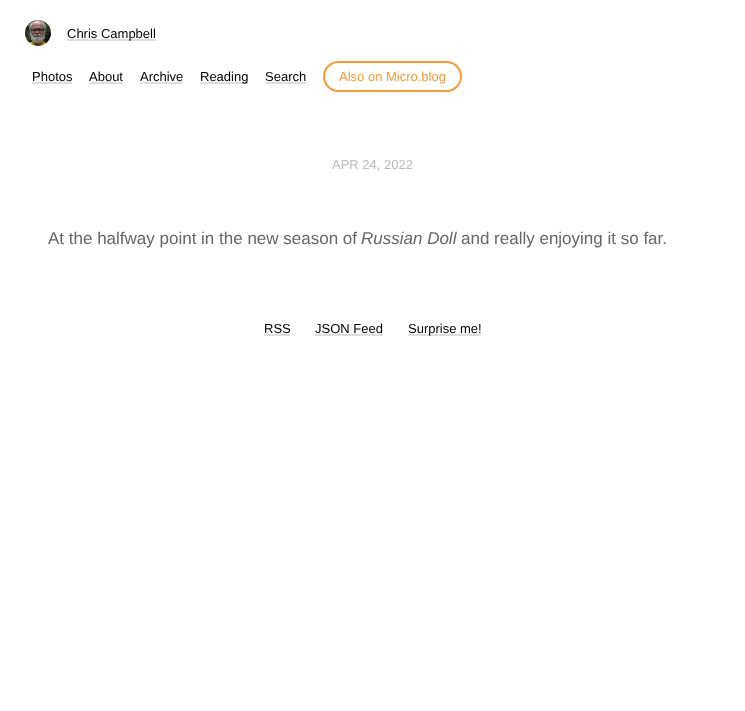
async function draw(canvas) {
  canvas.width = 745;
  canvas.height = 711;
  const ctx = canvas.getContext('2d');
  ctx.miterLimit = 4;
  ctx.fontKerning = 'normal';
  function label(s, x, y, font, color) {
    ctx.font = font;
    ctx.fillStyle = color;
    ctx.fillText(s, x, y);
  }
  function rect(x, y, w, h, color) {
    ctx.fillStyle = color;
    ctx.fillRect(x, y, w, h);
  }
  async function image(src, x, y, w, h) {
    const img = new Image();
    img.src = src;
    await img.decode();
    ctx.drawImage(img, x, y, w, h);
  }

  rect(0, 0, 745, 711, '#fff');
  await image('assets/img1.png', 25, 20, 26, 26);
  rect(67, 39, 89, 2, '#dedede');
  label('Chris Campbell', 67, 38, '13px Liberation Sans', '#000');
  label('Photos', 32, 81, '13px Liberation Sans', '#000');
  rect(32, 82, 40, 2, '#dedede');
  label('About', 89, 81, '13px Liberation Sans', '#000');
  rect(89, 82, 34, 2, '#dedede');
  label('Archive', 140, 81, '13px Liberation Sans', '#000');
  rect(140, 82, 43, 2, '#dedede');
  rect(200, 82, 48, 2, '#dedede');
  label('Reading', 200, 81, '13px Liberation Sans', '#000');
  label('Search', 265, 81, '13px Liberation Sans', '#000');
  rect(265, 82, 41, 2, '#dedede');
  ctx.beginPath();
  ctx.roundRect(324, 62, 137, 29, 14.5);
  ctx.strokeStyle = '#f29c38';
  ctx.lineWidth = 2;
  ctx.stroke();
  label('Also on Micro.blog', 339, 81, '13px Liberation Sans', '#f29c38');
  label('APR 24, 2022', 332, 169, '13px Liberation Sans', '#bbb');
  label('At the halfway point in the new season of', 48, 244, '17px Liberation Sans', '#666');
  label('Russian Doll', 361, 244, 'italic 17px Liberation Sans', '#666');
  label('and really enjoying it so far.', 461, 244, '17px Liberation Sans', '#666');
  label('RSS', 264, 333, '13px Liberation Sans', '#000');
  rect(264, 334, 26, 2, '#dedede');
  label('JSON Feed', 315, 333, '13px Liberation Sans', '#000');
  rect(315, 334, 68, 2, '#dedede');
  rect(408, 334, 73, 2, '#dedede');
  label('Surprise me!', 408, 333, '13px Liberation Sans', '#000');
}

draw(document.querySelector('canvas'));
